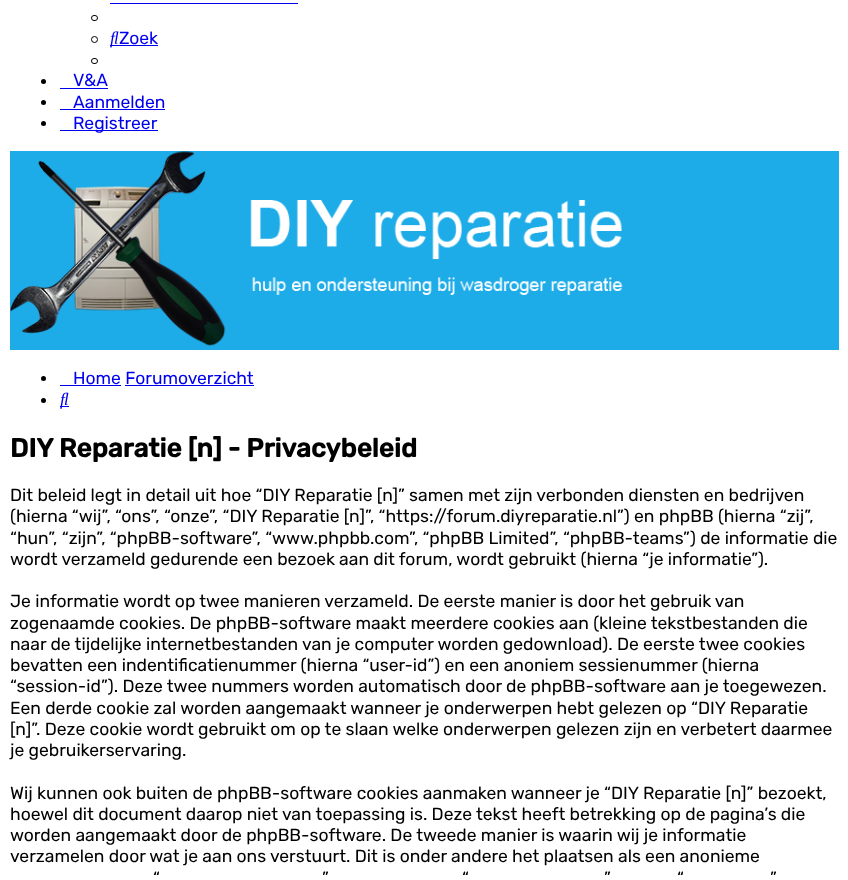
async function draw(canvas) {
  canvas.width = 848;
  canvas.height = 880;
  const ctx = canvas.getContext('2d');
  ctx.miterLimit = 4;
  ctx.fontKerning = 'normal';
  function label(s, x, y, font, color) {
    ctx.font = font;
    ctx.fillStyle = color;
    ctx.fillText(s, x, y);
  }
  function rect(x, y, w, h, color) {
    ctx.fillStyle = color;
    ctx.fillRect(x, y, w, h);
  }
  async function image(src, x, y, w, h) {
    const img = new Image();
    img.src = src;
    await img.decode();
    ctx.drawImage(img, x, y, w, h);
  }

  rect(0, 0, 848, 880, '#fff');
  rect(110, 3, 188, 1, '#00e');
  ctx.beginPath();
  ctx.roundRect(91.5, 15.5, 6, 5, 2.5);
  ctx.strokeStyle = '#000';
  ctx.stroke();
  ctx.beginPath();
  ctx.arc(94.5, 39.5, 3, 0, 2 * Math.PI);
  ctx.stroke();
  rect(110, 45, 48, 1, '#00e');
  await image('assets/img1.png', 110, 31, 9, 17);
  label('Zoek', 119, 44, '17.5px Rubik', '#00e');
  ctx.beginPath();
  ctx.roundRect(91.5, 58.5, 6, 5, 2.5);
  ctx.stroke();
  ctx.fillStyle = '#000';
  ctx.beginPath();
  ctx.arc(43.5, 81.5, 2.5, 0, 2 * Math.PI);
  ctx.fill();
  label('V&A', 73, 86, '17.5px Rubik', '#00e');
  rect(60, 88, 48, 1, '#00e');
  ctx.fillStyle = '#000';
  ctx.beginPath();
  ctx.arc(43.5, 102.5, 2.5, 0, 2 * Math.PI);
  ctx.fill();
  label('Aanmelden', 73, 108, '17.5px Rubik', '#00e');
  rect(60, 109, 105, 1, '#00e');
  ctx.fillStyle = '#000';
  ctx.beginPath();
  ctx.arc(43.5, 123.5, 2.5, 0, 2 * Math.PI);
  ctx.fill();
  rect(60, 130, 98, 1, '#00e');
  label('Registreer', 73, 129, '17.5px Rubik', '#00e');
  rect(10, 151, 829, 199, '#1dace8');
  await image('assets/img2.png', 10, 151, 613, 195);
  ctx.fillStyle = '#000';
  ctx.beginPath();
  ctx.arc(43.5, 378.5, 2.5, 0, 2 * Math.PI);
  ctx.fill();
  label('Home Forumoverzicht', 73, 384, '17.5px Rubik', '#00e');
  rect(60, 385, 61, 1, '#00e');
  rect(125, 385, 129, 1, '#00e');
  ctx.fillStyle = '#000';
  ctx.beginPath();
  ctx.arc(43.5, 400.5, 2.5, 0, 2 * Math.PI);
  ctx.fill();
  rect(60, 406, 9, 1, '#00e');
  await image('assets/img3.png', 60, 392, 9, 17);
  label('DIY Reparatie [n] - Privacybeleid', 10, 457, 'bold 26.25px Rubik', '#000');
  label('Dit beleid legt in detail uit hoe “DIY Reparatie [n]” samen met zijn verbonden diensten en bedrijven', 10, 501, '17.5px Rubik', '#000');
  label('(hierna “wij”, “ons”, “onze”, “DIY Reparatie [n]”, “https://forum.diyreparatie.nl”) en phpBB (hierna “zij”,', 10, 522, '17.5px Rubik', '#000');
  label('“hun”, “zijn”, “phpBB-software”, “www.phpbb.com”, “phpBB Limited”, “phpBB-teams”) de informatie die', 10, 544, '17.5px Rubik', '#000');
  label('wordt verzameld gedurende een bezoek aan dit forum, wordt gebruikt (hierna “je informatie”).', 10, 565, '17.5px Rubik', '#000');
  label('Je informatie wordt op twee manieren verzameld. De eerste manier is door het gebruik van', 10, 607, '17.5px Rubik', '#000');
  label('zogenaamde cookies. De phpBB-software maakt meerdere cookies aan (kleine tekstbestanden die', 10, 629, '17.5px Rubik', '#000');
  label('naar de tijdelijke internetbestanden van je computer worden gedownload). De eerste twee cookies', 10, 650, '17.5px Rubik', '#000');
  label('bevatten een indentificatienummer (hierna “user-id”) en een anoniem sessienummer (hierna', 10, 671, '17.5px Rubik', '#000');
  label('“session-id”). Deze twee nummers worden automatisch door de phpBB-software aan je toegewezen.', 10, 692, '17.5px Rubik', '#000');
  label('Een derde cookie zal worden aangemaakt wanneer je onderwerpen hebt gelezen op “DIY Reparatie', 10, 714, '17.5px Rubik', '#000');
  label('[n]”. Deze cookie wordt gebruikt om op te slaan welke onderwerpen gelezen zijn en verbetert daarmee', 10, 735, '17.5px Rubik', '#000');
  label('je gebruikerservaring.', 10, 756, '17.5px Rubik', '#000');
  label('Wij kunnen ook buiten de phpBB-software cookies aanmaken wanneer je “DIY Reparatie [n]” bezoekt,', 10, 799, '17.5px Rubik', '#000');
  label('hoewel dit document daarop niet van toepassing is. Deze tekst heeft betrekking op de pagina’s die', 10, 820, '17.5px Rubik', '#000');
  label('worden aangemaakt door de phpBB-software. De tweede manier is waarin wij je informatie', 10, 841, '17.5px Rubik', '#000');
  label('verzamelen door wat je aan ons verstuurt. Dit is onder andere het plaatsen als een anonieme', 10, 862, '17.5px Rubik', '#000');
  label('“', 153, 884, '17.5px Rubik', '#000');
  label('”', 322, 884, '17.5px Rubik', '#000');
  label('“', 462, 884, '17.5px Rubik', '#000');
  label('”', 604, 884, '17.5px Rubik', '#000');
  label('“', 677, 884, '17.5px Rubik', '#000');
  label('”', 770, 884, '17.5px Rubik', '#000');
}

draw(document.querySelector('canvas'));
